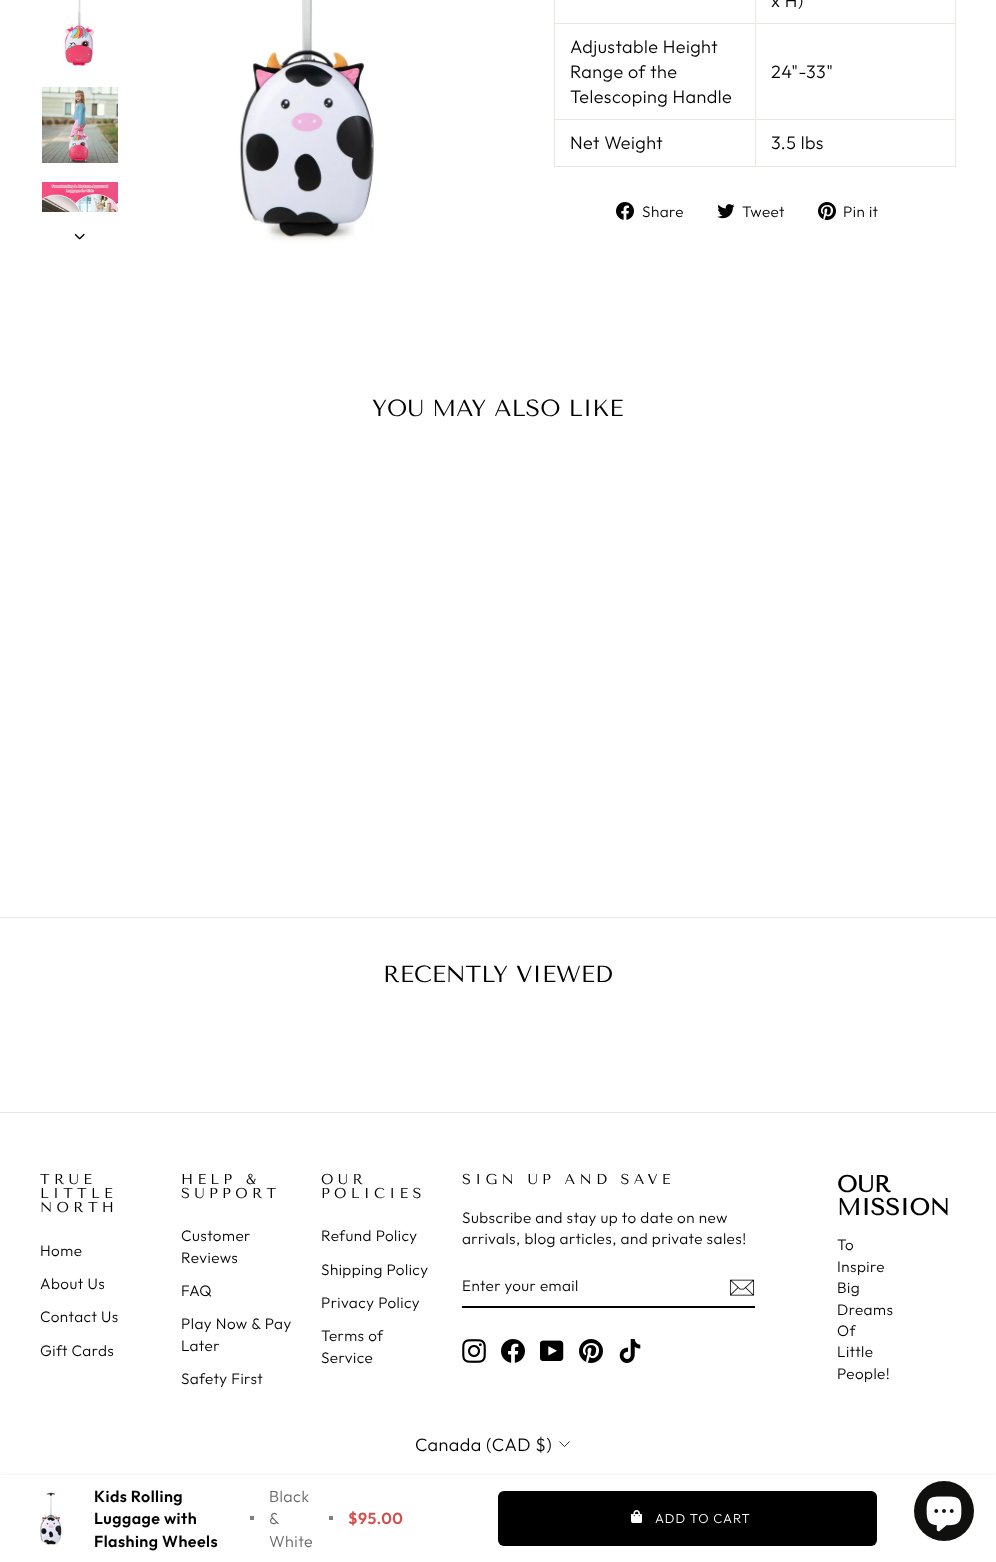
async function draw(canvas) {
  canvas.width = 996;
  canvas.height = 1562;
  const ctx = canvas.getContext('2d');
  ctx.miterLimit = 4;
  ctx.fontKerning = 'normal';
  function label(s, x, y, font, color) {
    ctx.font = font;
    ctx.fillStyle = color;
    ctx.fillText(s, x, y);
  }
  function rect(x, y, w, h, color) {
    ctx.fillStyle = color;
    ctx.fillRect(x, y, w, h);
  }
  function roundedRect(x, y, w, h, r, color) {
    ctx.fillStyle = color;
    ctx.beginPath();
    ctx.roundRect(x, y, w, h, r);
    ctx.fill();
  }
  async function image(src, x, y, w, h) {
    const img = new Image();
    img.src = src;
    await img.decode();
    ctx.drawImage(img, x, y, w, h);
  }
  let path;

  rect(0, 0, 996, 1562, '#fff');
  await image('assets/img1.png', 62, 0, 33, 68);
  await image('assets/img2.png', 42, 87, 76, 76);
  await image('assets/img3.png', 42, 182, 76, 30);
  await image('assets/img4.png', 75, 233, 10, 7);
  await image('assets/img5.png', 239, 0, 135, 243);
  rect(554, 0, 402, 167, '#e8e8e1');
  rect(555, 0, 200, 23, '#fff');
  rect(756, 0, 199, 23, '#fff');
  ctx.letterSpacing = '0.45px';
  label('x H)', 771, 7, '300 18px Outfit', '#000');
  rect(555, 24, 200, 95, '#fff');
  label('Adjustable Height', 570, 53, '300 18px Outfit', '#000');
  label('Range of the', 570, 78, '300 18px Outfit', '#000');
  label('Telescoping Handle', 570, 103, '300 18px Outfit', '#000');
  rect(756, 24, 199, 95, '#fff');
  label('24"-33"', 771, 78, '300 18px Outfit', '#000');
  rect(555, 120, 200, 46, '#fff');
  label('Net Weight', 570, 149, '300 18px Outfit', '#000');
  rect(756, 120, 199, 46, '#fff');
  label('3.5 lbs', 771, 149, '300 18px Outfit', '#000');
  await image('assets/img6.png', 616, 202, 18, 18);
  label('Share', 642, 217, '300 15.25px Outfit', '#000');
  await image('assets/img7.png', 717, 204, 18, 15);
  label('Tweet', 742, 217, '300 15.25px Outfit', '#000');
  await image('assets/img8.png', 818, 202, 18, 18);
  label('Pin it', 843, 217, '300 15.25px Outfit', '#000');
  ctx.fillStyle = '#0000001a';
  ctx.filter = 'blur(1.5px)';
  ctx.beginPath();
  ctx.rect(0, 1475, 996, 87);
  ctx.fill();
  ctx.filter = 'none';
  rect(0, 1475, 996, 87, '#fff');
  await image('assets/img9.png', 40, 1491, 24, 55);
  label('Kids Rolling', 94, 1502, '600 16px Outfit', '#000');
  label('Luggage with', 94, 1524, '600 16px Outfit', '#000');
  label('Flashing Wheels', 94, 1547, '600 16px Outfit', '#000');
  rect(250, 1516, 4, 4, '#808080');
  label('Black', 269, 1502, '300 16px Outfit', '#666');
  label('&', 269, 1524, '300 16px Outfit', '#666');
  label('White', 269, 1547, '300 16px Outfit', '#666');
  rect(329, 1516, 4, 4, '#808080');
  label('$95.00', 348, 1524, '600 16px Outfit', '#d54d4d');
  roundedRect(498, 1491, 379, 55, 6, '#000');
  await image('assets/img10.png', 631, 1510, 11, 13);
  ctx.letterSpacing = '1px';
  label('ADD TO CART', 655, 1523, '300 13px Outfit', '#fff');
  ctx.letterSpacing = '0px';
  label('YOU MAY ALSO LIKE', 372, 416, '23.4px Tenor Sans', '#000');
  rect(0, 917, 996, 1, '#e8e8e1');
  label('RECENTLY VIEWED', 383, 982, '23.4px Tenor Sans', '#000');
  rect(0, 1112, 996, 1, '#e8e8e1');
  ctx.letterSpacing = '4.3px';
  label('TRUE', 40, 1184, '14.4px Tenor Sans', '#000');
  label('LITTLE', 40, 1198, '14.4px Tenor Sans', '#000');
  label('NORTH', 40, 1212, '14.4px Tenor Sans', '#000');
  ctx.letterSpacing = '0.45px';
  label('Home', 40, 1256, '300 15.25px Outfit', '#000');
  label('About Us', 40, 1289, '300 15.25px Outfit', '#000');
  label('Contact Us', 40, 1322, '300 15.25px Outfit', '#000');
  label('Gift Cards', 40, 1356, '300 15.25px Outfit', '#000');
  ctx.letterSpacing = '4.3px';
  label('HELP &', 181, 1184, '14.4px Tenor Sans', '#000');
  label('SUPPORT', 181, 1198, '14.4px Tenor Sans', '#000');
  ctx.letterSpacing = '0.45px';
  label('Customer', 181, 1241, '300 15.25px Outfit', '#000');
  label('Reviews', 181, 1263, '300 15.25px Outfit', '#000');
  label('FAQ', 181, 1296, '300 15.25px Outfit', '#000');
  label('Play Now & Pay', 181, 1329, '300 15.25px Outfit', '#000');
  label('Later', 181, 1351, '300 15.25px Outfit', '#000');
  label('Safety First', 181, 1384, '300 15.25px Outfit', '#000');
  ctx.letterSpacing = '4.3px';
  label('OUR', 321, 1184, '14.4px Tenor Sans', '#000');
  label('POLICIES', 321, 1198, '14.4px Tenor Sans', '#000');
  ctx.letterSpacing = '0.45px';
  label('Refund Policy', 321, 1241, '300 15.25px Outfit', '#000');
  label('Shipping Policy', 321, 1275, '300 15.25px Outfit', '#000');
  label('Privacy Policy', 321, 1308, '300 15.25px Outfit', '#000');
  label('Terms of', 321, 1341, '300 15.25px Outfit', '#000');
  label('Service', 321, 1363, '300 15.25px Outfit', '#000');
  ctx.letterSpacing = '4.3px';
  label('SIGN UP AND SAVE', 462, 1184, '14.4px Tenor Sans', '#000');
  ctx.letterSpacing = '0.45px';
  label('Subscribe and stay up to date on new', 462, 1223, '300 15.25px Outfit', '#000');
  label('arrivals, blog articles, and private sales!', 462, 1244, '300 15.25px Outfit', '#000');
  rect(462, 1306, 293, 2, '#000');
  ctx.letterSpacing = '0.4px';
  label('Enter your email', 462, 1291, '300 15.25px Outfit', '#000');
  await image('assets/img11.png', 729, 1279, 26, 17);
  await image('assets/img12.png', 462, 1339, 24, 24);
  await image('assets/img13.png', 501, 1339, 24, 24);
  await image('assets/img14.png', 540, 1340, 24, 21);
  await image('assets/img15.png', 579, 1339, 24, 24);
  await image('assets/img16.png', 619, 1339, 22, 24);
  ctx.letterSpacing = '0px';
  label('OUR', 837, 1192, 'bold 23.4px Tenor Sans', '#000');
  label('MISSION', 837, 1215, 'bold 23.4px Tenor Sans', '#000');
  ctx.letterSpacing = '0.45px';
  label('To', 837, 1250, '300 15.25px Outfit', '#000');
  label('Inspire', 837, 1272, '300 15.25px Outfit', '#000');
  label('Big', 837, 1293, '300 15.25px Outfit', '#000');
  label('Dreams', 837, 1315, '300 15.25px Outfit', '#000');
  label('Of', 837, 1336, '300 15.25px Outfit', '#000');
  label('Little', 837, 1357, '300 15.25px Outfit', '#000');
  label('People!', 837, 1379, '300 15.25px Outfit', '#000');
  label('Canada (CAD $)', 415, 1451, '300 18px Outfit', '#000');
  path = new Path2D('M559.5 1441.5L564.5 1446.5L569.5 1441.5');
  ctx.strokeStyle = '#000';
  ctx.lineWidth = 0.8;
  ctx.stroke(path);
  ctx.fillStyle = '#10100f';
  ctx.beginPath();
  ctx.arc(944, 1511, 30, 0, 2 * Math.PI);
  ctx.fill();
  await image('assets/img17.png', 926, 1496, 36, 36);
}

draw(document.querySelector('canvas'));
